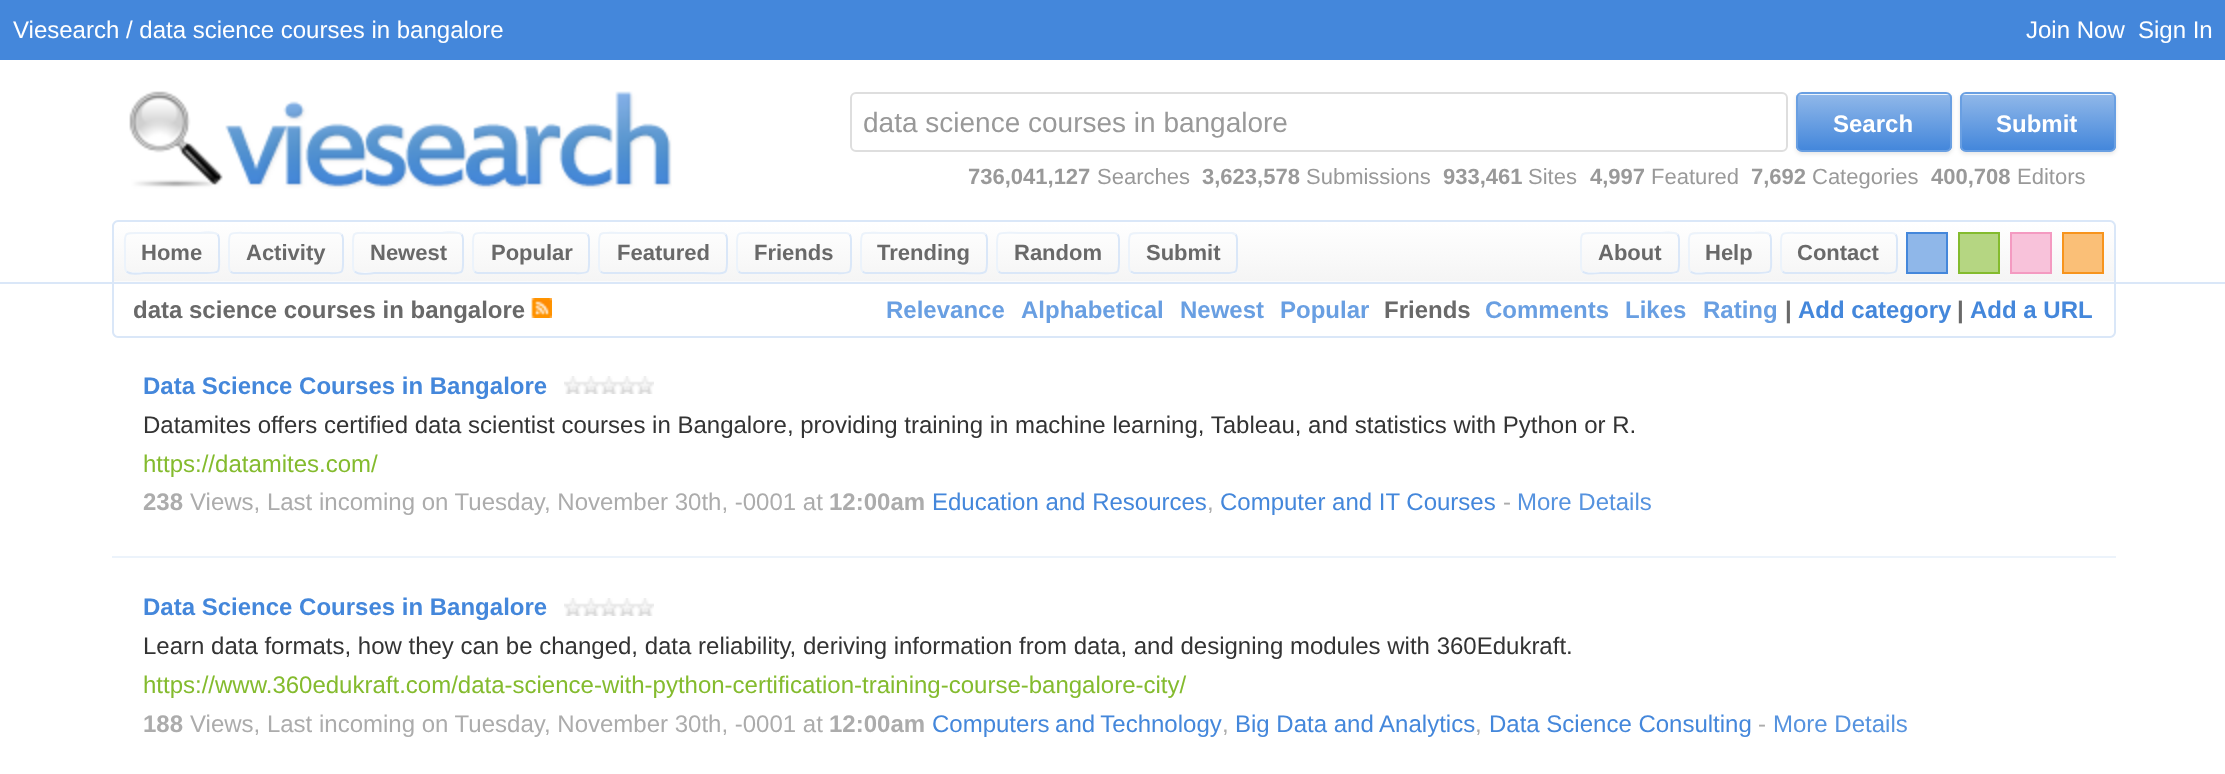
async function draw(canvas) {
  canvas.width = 2225;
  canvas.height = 774;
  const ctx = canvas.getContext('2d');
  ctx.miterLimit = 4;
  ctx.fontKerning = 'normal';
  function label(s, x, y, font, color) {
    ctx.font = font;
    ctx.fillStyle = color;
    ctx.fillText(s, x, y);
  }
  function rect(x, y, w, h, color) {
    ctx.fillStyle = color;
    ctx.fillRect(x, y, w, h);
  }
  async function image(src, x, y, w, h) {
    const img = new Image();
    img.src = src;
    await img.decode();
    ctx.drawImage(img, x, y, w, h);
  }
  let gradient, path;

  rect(0, 0, 2225, 774, '#fff');
  rect(0, 0, 2225, 60, '#4487db');
  label('Viesearch / data science courses in bangalore', 13, 38, '24px Liberation Sans', '#fff');
  label('Join Now', 2026, 38, '24px Liberation Sans', '#fff');
  label('Sign In', 2138, 38, '24px Liberation Sans', '#fff');
  await image('assets/img1.png', 129, 91, 543, 98);
  ctx.beginPath();
  ctx.roundRect(851, 93, 936, 58, 5);
  ctx.strokeStyle = '#dedede';
  ctx.lineWidth = 2;
  ctx.stroke();
  label('data science courses in bangalore', 863, 132, '28px Liberation Sans', '#999');
  ctx.fillStyle = '#0000001a';
  ctx.filter = 'blur(2px)';
  ctx.beginPath();
  ctx.roundRect(1796, 94, 156, 60, 6);
  ctx.fill();
  ctx.filter = 'none';
  ctx.save();
  ctx.beginPath();
  ctx.roundRect(1796, 92, 156, 60, 6);
  ctx.clip();
  gradient = ctx.createLinearGradient(1950, 94, 1950, 150);
  gradient.addColorStop(0.01, '#ecf3fb');
  gradient.addColorStop(0.02, '#8fb7e9');
  gradient.addColorStop(1, '#4487db');
  ctx.fillStyle = gradient;
  ctx.fillRect(1796, 94, 156, 56);
  ctx.restore();
  ctx.beginPath();
  ctx.roundRect(1797, 93, 154, 58, 5);
  ctx.strokeStyle = '#699fe2';
  ctx.stroke();
  label('Search', 1833, 132, 'bold 24px Liberation Sans', '#fff');
  ctx.fillStyle = '#0000001a';
  ctx.filter = 'blur(2px)';
  ctx.beginPath();
  ctx.roundRect(1960, 94, 156, 60, 6);
  ctx.fill();
  ctx.filter = 'none';
  ctx.save();
  ctx.beginPath();
  ctx.roundRect(1960, 92, 156, 60, 6);
  ctx.clip();
  gradient = ctx.createLinearGradient(2114, 94, 2114, 150);
  gradient.addColorStop(0.01, '#ecf3fb');
  gradient.addColorStop(0.02, '#8fb7e9');
  gradient.addColorStop(1, '#4487db');
  ctx.fillStyle = gradient;
  ctx.fillRect(1960, 94, 156, 56);
  ctx.restore();
  ctx.beginPath();
  ctx.roundRect(1961, 93, 154, 58, 5);
  ctx.stroke();
  label('Submit', 1996, 132, 'bold 24px Liberation Sans', '#fff');
  label('736,041,127', 968, 184, 'bold 22px Liberation Sans', '#999');
  label('Searches', 1097, 184, '22px Liberation Sans', '#999');
  label('3,623,578', 1202, 184, 'bold 22px Liberation Sans', '#999');
  label('Submissions', 1306, 184, '22px Liberation Sans', '#999');
  label('933,461', 1443, 184, 'bold 22px Liberation Sans', '#999');
  label('Sites', 1528, 184, '22px Liberation Sans', '#999');
  label('4,997', 1590, 184, 'bold 22px Liberation Sans', '#999');
  label('Featured', 1651, 184, '22px Liberation Sans', '#999');
  label('7,692', 1751, 184, 'bold 22px Liberation Sans', '#999');
  label('Categories', 1812, 184, '22px Liberation Sans', '#999');
  label('400,708', 1931, 184, 'bold 22px Liberation Sans', '#999');
  label('Editors', 2017, 184, '22px Liberation Sans', '#999');
  rect(0, 282, 2225, 2, '#dae7f8');
  ctx.save();
  ctx.beginPath();
  ctx.roundRect(112, 220, 2004, 62, [6, 6, 0, 0]);
  ctx.clip();
  gradient = ctx.createLinearGradient(2114, 222, 2114, 282);
  gradient.addColorStop(0.01, '#fff');
  gradient.addColorStop(0.02, '#fff');
  gradient.addColorStop(0.98, '#f5f5f5');
  gradient.addColorStop(1, '#fff');
  ctx.fillStyle = gradient;
  ctx.fillRect(112, 222, 2004, 60);
  ctx.restore();
  path = new Path2D('M118 220H2110C2113 220 2116 223 2116 226V282H112V226C112 223 115 220 118 220ZM118 222H2110C2112 222 2114 224 2114 226V282H114V226C114 224 116 222 118 222Z');
  ctx.fill(path, 'evenodd');
  ctx.save();
  ctx.beginPath();
  ctx.roundRect(124, 232, 96, 42, 6);
  ctx.clip();
  gradient = ctx.createLinearGradient(218, 196, 218, 234);
  gradient.addColorStop(0.01, '#fff');
  gradient.addColorStop(0.02, '#fff');
  gradient.addColorStop(1, '#f5f5f5');
  ctx.fillStyle = gradient;
  ctx.fillRect(124, 232, 96, 2);
  gradient = ctx.createLinearGradient(218, 272, 218, 310);
  gradient.addColorStop(0.01, '#fff');
  gradient.addColorStop(0.02, '#fff');
  gradient.addColorStop(1, '#f5f5f5');
  ctx.fillStyle = gradient;
  ctx.fillRect(124, 272, 96, 2);
  ctx.restore();
  path = new Path2D('M217.5 234.5C219.5 236.5 219 240.5 219 243V253C219 275 222.5 273 200 273H144C144 273 130 275 126.5 271.5');
  ctx.strokeStyle = '#dae7f8';
  ctx.stroke(path);
  path = new Path2D('M126.5 271.5C124.5 269.5 125 265.5 125 263V253C125 231 121.5 233 144 233H200C200 233 214 231 217.5 234.5');
  ctx.strokeStyle = '#ecf3fb';
  ctx.stroke(path);
  label('Home', 141, 260, 'bold 22px Liberation Sans', '#696969');
  path = new Path2D('M341.5 234.5C343.5 236.5 343 240.5 343 243V253C343 276.5 346 273 320.5 273H234C232.5 273 231.5 272.5 230.5 271.5');
  ctx.strokeStyle = '#dae7f8';
  ctx.stroke(path);
  path = new Path2D('M230.5 271.5C228.5 269.5 229 265.5 229 263V253C229 229.5 226 233 251.5 233H338C339.5 233 340.5 233.5 341.5 234.5');
  ctx.strokeStyle = '#ecf3fb';
  ctx.stroke(path);
  label('Activity', 246, 260, 'bold 22px Liberation Sans', '#696969');
  ctx.save();
  ctx.beginPath();
  ctx.roundRect(352, 232, 112, 42, 6);
  ctx.clip();
  gradient = ctx.createLinearGradient(462, 196, 462, 234);
  gradient.addColorStop(0.01, '#fff');
  gradient.addColorStop(0.02, '#fff');
  gradient.addColorStop(1, '#f5f5f5');
  ctx.fillStyle = gradient;
  ctx.fillRect(352, 232, 112, 2);
  gradient = ctx.createLinearGradient(462, 272, 462, 310);
  gradient.addColorStop(0.01, '#fff');
  gradient.addColorStop(0.02, '#fff');
  gradient.addColorStop(1, '#f5f5f5');
  ctx.fillStyle = gradient;
  ctx.fillRect(352, 272, 112, 2);
  ctx.restore();
  path = new Path2D('M461.5 234.5C463.5 236.5 463 240.5 463 243V253C463 276.5 466 273 441.5 273H374.5C374.5 273 358.5 275.5 354.5 271.5');
  ctx.strokeStyle = '#dae7f8';
  ctx.stroke(path);
  path = new Path2D('M354.5 271.5C352.5 269.5 353 265.5 353 263V253C353 229.5 350 233 374.5 233H441.5C441.5 233 457.5 230.5 461.5 234.5');
  ctx.strokeStyle = '#ecf3fb';
  ctx.stroke(path);
  label('Newest', 370, 260, 'bold 22px Liberation Sans', '#696969');
  path = new Path2D('M587.5 234.5C589.5 236.5 589 240.5 589 243V253C589 276.5 592 273 566.5 273H478C476.5 273 475.5 272.5 474.5 271.5');
  ctx.strokeStyle = '#dae7f8';
  ctx.stroke(path);
  path = new Path2D('M474.5 271.5C472.5 269.5 473 265.5 473 263V253C473 229.5 470 233 495.5 233H584C585.5 233 586.5 233.5 587.5 234.5');
  ctx.strokeStyle = '#ecf3fb';
  ctx.stroke(path);
  label('Popular', 491, 260, 'bold 22px Liberation Sans', '#696969');
  ctx.save();
  ctx.beginPath();
  ctx.roundRect(598, 232, 130, 42, 6);
  ctx.clip();
  gradient = ctx.createLinearGradient(726, 196, 726, 234);
  gradient.addColorStop(0.01, '#fff');
  gradient.addColorStop(0.02, '#fff');
  gradient.addColorStop(1, '#f5f5f5');
  ctx.fillStyle = gradient;
  ctx.fillRect(598, 232, 130, 2);
  gradient = ctx.createLinearGradient(726, 272, 726, 310);
  gradient.addColorStop(0.01, '#fff');
  gradient.addColorStop(0.02, '#fff');
  gradient.addColorStop(1, '#f5f5f5');
  ctx.fillStyle = gradient;
  ctx.fillRect(598, 272, 130, 2);
  ctx.restore();
  path = new Path2D('M725.5 234.5C727.5 236.5 727 240.5 727 243V253C727 277.5 729.5 273 702.5 273H604C602.5 273 601.5 272.5 600.5 271.5');
  ctx.strokeStyle = '#dae7f8';
  ctx.stroke(path);
  path = new Path2D('M600.5 271.5C598.5 269.5 599 265.5 599 263V253C599 228.5 596.5 233 623.5 233H722C723.5 233 724.5 233.5 725.5 234.5');
  ctx.strokeStyle = '#ecf3fb';
  ctx.stroke(path);
  label('Featured', 617, 260, 'bold 22px Liberation Sans', '#696969');
  path = new Path2D('M849.5 234.5C851.5 236.5 851 240.5 851 243V253C851 276.5 854 273 828.5 273H742C740.5 273 739.5 272.5 738.5 271.5');
  ctx.strokeStyle = '#dae7f8';
  ctx.stroke(path);
  path = new Path2D('M738.5 271.5C736.5 269.5 737 265.5 737 263V253C737 229.5 734 233 759.5 233H846C847.5 233 848.5 233.5 849.5 234.5');
  ctx.strokeStyle = '#ecf3fb';
  ctx.stroke(path);
  label('Friends', 754, 260, 'bold 22px Liberation Sans', '#696969');
  ctx.save();
  ctx.beginPath();
  ctx.roundRect(860, 232, 128, 42, 6);
  ctx.clip();
  gradient = ctx.createLinearGradient(986, 196, 986, 234);
  gradient.addColorStop(0.01, '#fff');
  gradient.addColorStop(0.02, '#fff');
  gradient.addColorStop(1, '#f5f5f5');
  ctx.fillStyle = gradient;
  ctx.fillRect(860, 232, 128, 2);
  gradient = ctx.createLinearGradient(986, 272, 986, 310);
  gradient.addColorStop(0.01, '#fff');
  gradient.addColorStop(0.02, '#fff');
  gradient.addColorStop(1, '#f5f5f5');
  ctx.fillStyle = gradient;
  ctx.fillRect(860, 272, 128, 2);
  ctx.restore();
  path = new Path2D('M985.5 234.5C987.5 236.5 987 240.5 987 243V253C987 277.5 989.5 273 962.5 273H866C864.5 273 863.5 272.5 862.5 271.5');
  ctx.strokeStyle = '#dae7f8';
  ctx.stroke(path);
  path = new Path2D('M862.5 271.5C860.5 269.5 861 265.5 861 263V253C861 228.5 858.5 233 885.5 233H982C983.5 233 984.5 233.5 985.5 234.5');
  ctx.strokeStyle = '#ecf3fb';
  ctx.stroke(path);
  label('Trending', 877, 260, 'bold 22px Liberation Sans', '#696969');
  path = new Path2D('M1117.5 234.5C1119.5 236.5 1119 240.5 1119 243V253C1119 277 1121.5 273 1095.5 273H1002C1000.5 273 999.5 272.5 998.5 271.5');
  ctx.strokeStyle = '#dae7f8';
  ctx.stroke(path);
  path = new Path2D('M998.5 271.5C996.5 269.5 997 265.5 997 263V253C997 229 994.5 233 1020.5 233H1114C1115.5 233 1116.5 233.5 1117.5 234.5');
  ctx.strokeStyle = '#ecf3fb';
  ctx.stroke(path);
  label('Random', 1014, 260, 'bold 22px Liberation Sans', '#696969');
  ctx.save();
  ctx.beginPath();
  ctx.roundRect(1128, 232, 110, 42, 6);
  ctx.clip();
  gradient = ctx.createLinearGradient(1236, 196, 1236, 234);
  gradient.addColorStop(0.01, '#fff');
  gradient.addColorStop(0.02, '#fff');
  gradient.addColorStop(1, '#f5f5f5');
  ctx.fillStyle = gradient;
  ctx.fillRect(1128, 232, 110, 2);
  gradient = ctx.createLinearGradient(1236, 272, 1236, 310);
  gradient.addColorStop(0.01, '#fff');
  gradient.addColorStop(0.02, '#fff');
  gradient.addColorStop(1, '#f5f5f5');
  ctx.fillStyle = gradient;
  ctx.fillRect(1128, 272, 110, 2);
  ctx.restore();
  path = new Path2D('M1235.5 234.5C1237.5 236.5 1237 240.5 1237 243V253C1237 276 1240 273 1215.5 273H1134L1130.5 271.5');
  ctx.strokeStyle = '#dae7f8';
  ctx.stroke(path);
  path = new Path2D('M1130.5 271.5C1128.5 269.5 1129 265.5 1129 263V253C1129 230 1126 233 1150.5 233H1232L1235.5 234.5');
  ctx.strokeStyle = '#ecf3fb';
  ctx.stroke(path);
  label('Submit', 1146, 260, 'bold 22px Liberation Sans', '#696969');
  ctx.save();
  ctx.beginPath();
  ctx.roundRect(1580, 232, 100, 42, 6);
  ctx.clip();
  gradient = ctx.createLinearGradient(1678, 196, 1678, 234);
  gradient.addColorStop(0.01, '#fff');
  gradient.addColorStop(0.02, '#fff');
  gradient.addColorStop(1, '#f5f5f5');
  ctx.fillStyle = gradient;
  ctx.fillRect(1580, 232, 100, 2);
  gradient = ctx.createLinearGradient(1678, 272, 1678, 310);
  gradient.addColorStop(0.01, '#fff');
  gradient.addColorStop(0.02, '#fff');
  gradient.addColorStop(1, '#f5f5f5');
  ctx.fillStyle = gradient;
  ctx.fillRect(1580, 272, 100, 2);
  ctx.restore();
  path = new Path2D('M1677.5 234.5C1679.5 236.5 1679 240.5 1679 243V253C1679 275.5 1682 273 1659.5 273H1600.5C1599 273 1586 275 1582.5 271.5');
  ctx.strokeStyle = '#dae7f8';
  ctx.stroke(path);
  path = new Path2D('M1582.5 271.5C1580.5 269.5 1581 265.5 1581 263V253C1581 230.5 1578 233 1600.5 233H1659.5C1661 233 1674 231 1677.5 234.5');
  ctx.strokeStyle = '#ecf3fb';
  ctx.stroke(path);
  label('About', 1598, 260, 'bold 22px Liberation Sans', '#696969');
  ctx.save();
  ctx.beginPath();
  ctx.roundRect(1688, 232, 84, 42, 6);
  ctx.clip();
  gradient = ctx.createLinearGradient(1770, 196, 1770, 234);
  gradient.addColorStop(0.01, '#fff');
  gradient.addColorStop(0.02, '#fff');
  gradient.addColorStop(1, '#f5f5f5');
  ctx.fillStyle = gradient;
  ctx.fillRect(1688, 232, 84, 2);
  gradient = ctx.createLinearGradient(1770, 272, 1770, 310);
  gradient.addColorStop(0.01, '#fff');
  gradient.addColorStop(0.02, '#fff');
  gradient.addColorStop(1, '#f5f5f5');
  ctx.fillStyle = gradient;
  ctx.fillRect(1688, 272, 84, 2);
  ctx.restore();
  path = new Path2D('M1769.5 234.5C1771.5 236.5 1771 240.5 1771 243V253C1771 274 1774.5 273 1754 273H1706C1704.5 273 1694 275 1690.5 271.5');
  ctx.strokeStyle = '#dae7f8';
  ctx.stroke(path);
  path = new Path2D('M1690.5 271.5C1688.5 269.5 1689 265.5 1689 263V253C1689 232 1685.5 233 1706 233H1754C1755.5 233 1766 231 1769.5 234.5');
  ctx.strokeStyle = '#ecf3fb';
  ctx.stroke(path);
  label('Help', 1705, 260, 'bold 22px Liberation Sans', '#696969');
  path = new Path2D('M1895.5 234.5C1897.5 236.5 1897 240.5 1897 243V253C1897 276.5 1900 273 1874.5 273H1786C1784.5 273 1783.5 272.5 1782.5 271.5');
  ctx.strokeStyle = '#dae7f8';
  ctx.stroke(path);
  path = new Path2D('M1782.5 271.5C1780.5 269.5 1781 265.5 1781 263V253C1781 229.5 1778 233 1803.5 233H1892C1893.5 233 1894.5 233.5 1895.5 234.5');
  ctx.strokeStyle = '#ecf3fb';
  ctx.stroke(path);
  label('Contact', 1797, 260, 'bold 22px Liberation Sans', '#696969');
  ctx.fillStyle = '#8fb7e9';
  ctx.beginPath();
  ctx.rect(1907, 233, 40, 40);
  ctx.fill();
  ctx.strokeStyle = '#4487db';
  ctx.stroke();
  ctx.fillStyle = '#b5d682';
  ctx.beginPath();
  ctx.rect(1959, 233, 40, 40);
  ctx.fill();
  ctx.strokeStyle = '#84bb2e';
  ctx.stroke();
  ctx.fillStyle = '#f8c2da';
  ctx.beginPath();
  ctx.rect(2011, 233, 40, 40);
  ctx.fill();
  ctx.strokeStyle = '#f49ac1';
  ctx.stroke();
  ctx.fillStyle = '#fabf77';
  ctx.beginPath();
  ctx.rect(2063, 233, 40, 40);
  ctx.fill();
  ctx.strokeStyle = '#f7941d';
  ctx.stroke();
  ctx.fillStyle = '#dae7f8';
  path = new Path2D('M112 284H2116V332C2116 335 2113 338 2110 338H118C115 338 112 335 112 332ZM114 284H2114V332C2114 334 2112 336 2110 336H118C116 336 114 334 114 332Z');
  ctx.fill(path, 'evenodd');
  label('data science courses in bangalore', 133, 318, 'bold 24px Liberation Sans', '#696969');
  await image('assets/img2.png', 531, 298, 21, 20);
  label('Relevance', 886, 318, 'bold 24px Liberation Sans', '#699fe2');
  label('Alphabetical', 1021, 318, 'bold 24px Liberation Sans', '#699fe2');
  label('Newest', 1180, 318, 'bold 24px Liberation Sans', '#699fe2');
  label('Popular', 1280, 318, 'bold 24px Liberation Sans', '#699fe2');
  label('Friends', 1384, 318, 'bold 24px Liberation Sans', '#696969');
  label('Comments', 1485, 318, 'bold 24px Liberation Sans', '#699fe2');
  label('Likes', 1625, 318, 'bold 24px Liberation Sans', '#699fe2');
  label('Rating', 1703, 318, 'bold 24px Liberation Sans', '#699fe2');
  label('|', 1785, 318, 'bold 24px Liberation Sans', '#696969');
  label('Add category', 1798, 318, 'bold 24px Liberation Sans', '#4487db');
  label('|', 1957, 318, 'bold 24px Liberation Sans', '#696969');
  label('Add a URL', 1970, 318, 'bold 24px Liberation Sans', '#4487db');
  rect(112, 556, 2004, 2, '#ecf3fb');
  label('Data Science Courses in Bangalore', 143, 394, 'bold 24px Liberation Sans', '#4487db');
  await image('assets/img3.png', 564, 376, 90, 18);
  label('Datamites offers certified data scientist courses in Bangalore, providing training in machine learning, Tableau, and statistics with Python or R.', 143, 433, '24px Liberation Sans', '#333');
  label('https://datamites.com/', 143, 472, '24px Liberation Sans', '#84bb2e');
  label('238', 143, 510, 'bold 24px Liberation Sans', '#acacac');
  label('Views, Last incoming on Tuesday, November 30th, -0001 at', 190, 510, '24px Liberation Sans', '#acacac');
  label('12:00am', 829, 510, 'bold 24px Liberation Sans', '#acacac');
  label('Education and Resources', 932, 510, '24px Liberation Sans', '#4487db');
  label('Computer and IT Courses', 1220, 510, '24px Liberation Sans', '#4487db');
  label('-', 1503, 510, '24px Liberation Sans', '#acacac');
  label('More Details', 1517, 510, '24px Liberation Sans', '#5693df');
  label(',', 1207, 510, '24px Liberation Sans', '#acacac');
  label('Data Science Courses in Bangalore', 143, 615, 'bold 24px Liberation Sans', '#4487db');
  await image('assets/img3.png', 564, 598, 90, 18);
  label('Learn data formats, how they can be changed, data reliability, deriving information from data, and designing modules with 360Edukraft.', 143, 654, '24px Liberation Sans', '#333');
  label('https://www.360edukraft.com/data-science-with-python-certification-training-course-bangalore-city/', 143, 693, '24px Liberation Sans', '#84bb2e');
  label('188', 143, 732, 'bold 24px Liberation Sans', '#acacac');
  label('Views, Last incoming on Tuesday, November 30th, -0001 at', 190, 732, '24px Liberation Sans', '#acacac');
  label('12:00am', 829, 732, 'bold 24px Liberation Sans', '#acacac');
  ctx.wordSpacing = '-1px';
  label('Computers and Technology', 932, 732, '24px Liberation Sans', '#4487db');
  ctx.wordSpacing = '0px';
  label('Big Data and Analytics', 1235, 732, '24px Liberation Sans', '#4487db');
  label('Data Science Consulting', 1489, 732, '24px Liberation Sans', '#4487db');
  label('-', 1758, 732, '24px Liberation Sans', '#acacac');
  label('More Details', 1773, 732, '24px Liberation Sans', '#5693df');
  label(',', 1222, 732, '24px Liberation Sans', '#acacac');
  label(',', 1475, 732, '24px Liberation Sans', '#acacac');
}

draw(document.querySelector('canvas'));
